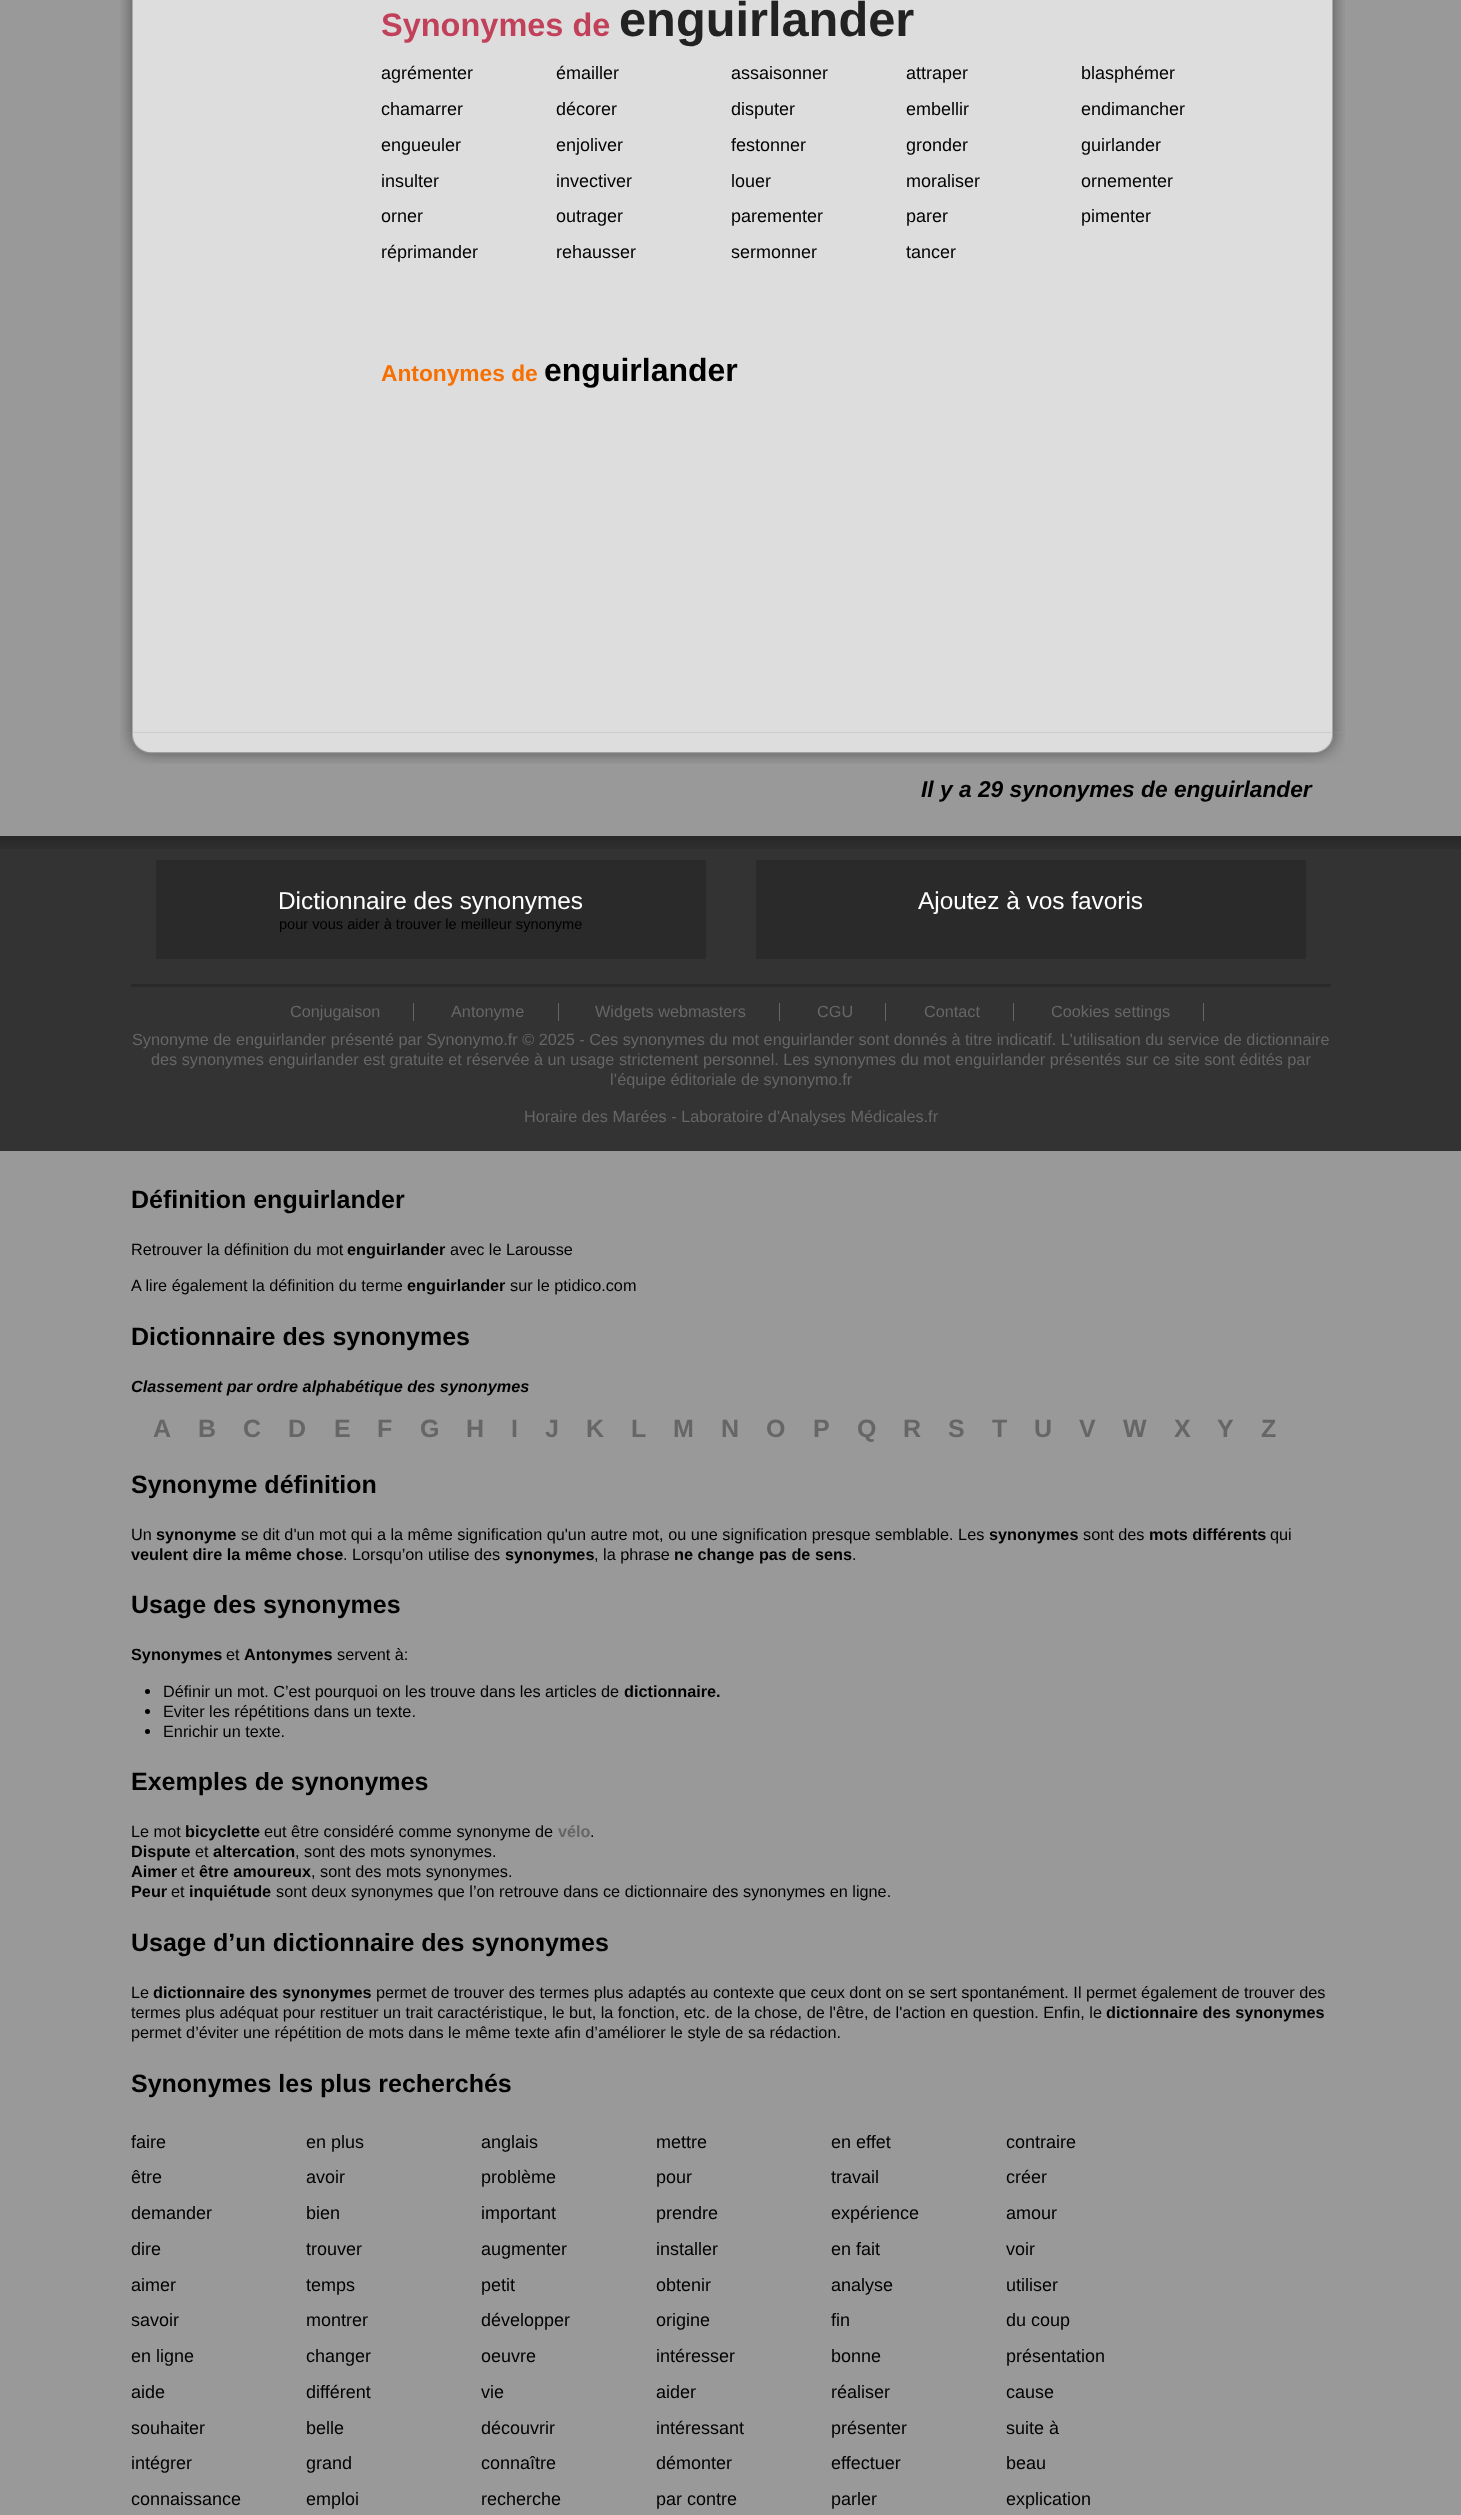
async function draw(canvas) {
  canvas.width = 1461;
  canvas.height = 2515;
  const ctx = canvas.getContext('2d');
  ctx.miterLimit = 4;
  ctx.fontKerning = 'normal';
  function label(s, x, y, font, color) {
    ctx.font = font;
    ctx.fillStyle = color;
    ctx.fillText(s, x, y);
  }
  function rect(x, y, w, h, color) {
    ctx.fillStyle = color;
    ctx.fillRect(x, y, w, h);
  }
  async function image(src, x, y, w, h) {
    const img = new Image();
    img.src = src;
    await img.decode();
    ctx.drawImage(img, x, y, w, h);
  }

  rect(0, 0, 1461, 2515, '#999');
  await image('assets/img1.png', 120, 0, 1225, 732);
  label('Synonymes de', 381, 36, 'bold 32.5px Liberation Sans', '#c2415a');
  label('enguirlander', 619, 36, 'bold 48.75px Liberation Sans', '#222');
  label('agrémenter', 381, 79, '18px Liberation Sans', '#000');
  label('émailler', 556, 79, '18px Liberation Sans', '#000');
  label('assaisonner', 731, 79, '18px Liberation Sans', '#000');
  label('attraper', 906, 79, '18px Liberation Sans', '#000');
  label('blasphémer', 1081, 79, '18px Liberation Sans', '#000');
  label('chamarrer', 381, 115, '18px Liberation Sans', '#000');
  label('décorer', 556, 115, '18px Liberation Sans', '#000');
  label('disputer', 731, 115, '18px Liberation Sans', '#000');
  label('embellir', 906, 115, '18px Liberation Sans', '#000');
  label('endimancher', 1081, 115, '18px Liberation Sans', '#000');
  label('engueuler', 381, 151, '18px Liberation Sans', '#000');
  label('enjoliver', 556, 151, '18px Liberation Sans', '#000');
  label('festonner', 731, 151, '18px Liberation Sans', '#000');
  label('gronder', 906, 151, '18px Liberation Sans', '#000');
  label('guirlander', 1081, 151, '18px Liberation Sans', '#000');
  label('insulter', 381, 187, '18px Liberation Sans', '#000');
  label('invectiver', 556, 187, '18px Liberation Sans', '#000');
  label('louer', 731, 187, '18px Liberation Sans', '#000');
  label('moraliser', 906, 187, '18px Liberation Sans', '#000');
  label('ornementer', 1081, 187, '18px Liberation Sans', '#000');
  label('orner', 381, 222, '18px Liberation Sans', '#000');
  label('outrager', 556, 222, '18px Liberation Sans', '#000');
  label('parementer', 731, 222, '18px Liberation Sans', '#000');
  label('parer', 906, 222, '18px Liberation Sans', '#000');
  label('pimenter', 1081, 222, '18px Liberation Sans', '#000');
  label('réprimander', 381, 258, '18px Liberation Sans', '#000');
  label('rehausser', 556, 258, '18px Liberation Sans', '#000');
  label('sermonner', 731, 258, '18px Liberation Sans', '#000');
  label('tancer', 906, 258, '18px Liberation Sans', '#000');
  label('Antonymes de', 381, 381, 'bold 22.75px Liberation Sans', '#f66f00');
  label('enguirlander', 544, 381, 'bold 32px Liberation Sans', '#000');
  await image('assets/img2.png', 120, 732, 1225, 32);
  label('Il y a 29 synonymes de enguirlander', 921, 797, 'italic bold 22.75px Liberation Sans', '#000');
  rect(0, 849, 1461, 302, '#333');
  await image('assets/img3.png', 0, 836, 1461, 13);
  rect(156, 860, 550, 99, '#2a2a2a');
  label('Dictionnaire des synonymes', 278, 909, '24.4px Liberation Sans', '#fff');
  label('pour vous aider à trouver le meilleur synonyme', 279, 929, '14.6px Liberation Sans', '#000');
  rect(756, 860, 550, 99, '#2a2a2a');
  label('Ajoutez à vos favoris', 918, 909, '24.4px Liberation Sans', '#fff');
  rect(131, 984, 1200, 3, '#2a2a2a');
  label('Conjugaison', 290, 1017, '16.25px Liberation Sans', '#666');
  rect(413, 1003, 1, 18, '#666');
  label('Antonyme', 451, 1017, '16.25px Liberation Sans', '#666');
  rect(558, 1003, 1, 18, '#666');
  label('Widgets webmasters', 595, 1017, '16.25px Liberation Sans', '#666');
  rect(779, 1003, 1, 18, '#666');
  label('CGU', 817, 1017, '16.25px Liberation Sans', '#666');
  rect(885, 1003, 1, 18, '#666');
  label('Contact', 924, 1017, '16.25px Liberation Sans', '#666');
  rect(1013, 1003, 1, 18, '#666');
  label('Cookies settings', 1051, 1017, '16.25px Liberation Sans', '#666');
  rect(1203, 1003, 1, 18, '#666');
  label('Synonyme de enguirlander présenté par Synonymo.fr © 2025 - Ces synonymes du mot enguirlander sont donnés à titre indicatif. L\'utilisation du service de dictionnaire', 132, 1045, '16.25px Liberation Sans', '#666');
  label('des synonymes enguirlander est gratuite et réservée à un usage strictement personnel. Les synonymes du mot enguirlander présentés sur ce site sont édités par', 151, 1065, '16.25px Liberation Sans', '#666');
  label('l’équipe éditoriale de synonymo.fr', 610, 1085, '16.25px Liberation Sans', '#666');
  label('Horaire des Marées - Laboratoire d\'Analyses Médicales.fr', 524, 1122, '16.25px Liberation Sans', '#666');
  label('Définition enguirlander', 131, 1208, 'bold 25px Liberation Sans', '#000');
  label('Retrouver la définition du mot', 131, 1255, '16.25px Liberation Sans', '#000');
  label('enguirlander', 347, 1255, 'bold 16.25px Liberation Sans', '#000');
  label('avec le Larousse', 450, 1255, '16.25px Liberation Sans', '#000');
  label('A lire également la définition du terme', 131, 1291, '16.25px Liberation Sans', '#000');
  label('enguirlander', 407, 1291, 'bold 16.25px Liberation Sans', '#000');
  label('sur le ptidico.com', 510, 1291, '16.25px Liberation Sans', '#000');
  label('Dictionnaire des synonymes', 131, 1345, 'bold 25px Liberation Sans', '#000');
  label('Classement par ordre alphabétique des synonymes', 131, 1392, 'italic bold 16.25px Liberation Sans', '#000');
  label('A', 153, 1437, 'bold 25px Liberation Sans', '#666');
  label('B', 198, 1437, 'bold 25px Liberation Sans', '#666');
  label('C', 243, 1437, 'bold 25px Liberation Sans', '#666');
  label('D', 288, 1437, 'bold 25px Liberation Sans', '#666');
  label('E', 334, 1437, 'bold 25px Liberation Sans', '#666');
  label('F', 377, 1437, 'bold 25px Liberation Sans', '#666');
  label('G', 420, 1437, 'bold 25px Liberation Sans', '#666');
  label('H', 466, 1437, 'bold 25px Liberation Sans', '#666');
  label('I', 511, 1437, 'bold 25px Liberation Sans', '#666');
  label('J', 545, 1437, 'bold 25px Liberation Sans', '#666');
  label('K', 586, 1437, 'bold 25px Liberation Sans', '#666');
  label('L', 631, 1437, 'bold 25px Liberation Sans', '#666');
  label('M', 673, 1437, 'bold 25px Liberation Sans', '#666');
  label('N', 721, 1437, 'bold 25px Liberation Sans', '#666');
  label('O', 766, 1437, 'bold 25px Liberation Sans', '#666');
  label('P', 813, 1437, 'bold 25px Liberation Sans', '#666');
  label('Q', 857, 1437, 'bold 25px Liberation Sans', '#666');
  label('R', 903, 1437, 'bold 25px Liberation Sans', '#666');
  label('S', 948, 1437, 'bold 25px Liberation Sans', '#666');
  label('T', 992, 1437, 'bold 25px Liberation Sans', '#666');
  label('U', 1034, 1437, 'bold 25px Liberation Sans', '#666');
  label('V', 1079, 1437, 'bold 25px Liberation Sans', '#666');
  label('W', 1123, 1437, 'bold 25px Liberation Sans', '#666');
  label('X', 1174, 1437, 'bold 25px Liberation Sans', '#666');
  label('Y', 1217, 1437, 'bold 25px Liberation Sans', '#666');
  label('Z', 1261, 1437, 'bold 25px Liberation Sans', '#666');
  label('Synonyme définition', 131, 1493, 'bold 25px Liberation Sans', '#000');
  label('Un', 131, 1540, '16.25px Liberation Sans', '#000');
  label('synonyme', 156, 1540, 'bold 16.25px Liberation Sans', '#000');
  label('se dit d\'un mot qui a la même signification qu\'un autre mot, ou une signification presque semblable. Les', 241, 1540, '16.25px Liberation Sans', '#000');
  label('synonymes', 989, 1540, 'bold 16.25px Liberation Sans', '#000');
  label('sont des', 1083, 1540, '16.25px Liberation Sans', '#000');
  label('mots différents', 1149, 1540, 'bold 16.25px Liberation Sans', '#000');
  label('qui', 1270, 1540, '16.25px Liberation Sans', '#000');
  label('veulent dire la même chose', 131, 1560, 'bold 16.25px Liberation Sans', '#000');
  label('. Lorsqu’on utilise des', 343, 1560, '16.25px Liberation Sans', '#000');
  label('synonymes', 505, 1560, 'bold 16.25px Liberation Sans', '#000');
  label(', la phrase', 594, 1560, '16.25px Liberation Sans', '#000');
  label('ne change pas de sens', 674, 1560, 'bold 16.25px Liberation Sans', '#000');
  label('.', 852, 1560, '16.25px Liberation Sans', '#000');
  label('Usage des synonymes', 131, 1613, 'bold 25px Liberation Sans', '#000');
  label('Synonymes', 131, 1660, 'bold 16.25px Liberation Sans', '#000');
  label('et', 226, 1660, '16.25px Liberation Sans', '#000');
  label('Antonymes', 244, 1660, 'bold 16.25px Liberation Sans', '#000');
  label('servent à:', 337, 1660, '16.25px Liberation Sans', '#000');
  ctx.beginPath();
  ctx.arc(147.5, 1691.5, 2.5, 0, 2 * Math.PI);
  ctx.fill();
  label('Définir un mot. C’est pourquoi on les trouve dans les articles de', 163, 1697, '16.25px Liberation Sans', '#000');
  label('dictionnaire.', 624, 1697, 'bold 16.25px Liberation Sans', '#000');
  ctx.beginPath();
  ctx.arc(147.5, 1711.5, 2.5, 0, 2 * Math.PI);
  ctx.fill();
  label('Eviter les répétitions dans un texte.', 163, 1717, '16.25px Liberation Sans', '#000');
  ctx.beginPath();
  ctx.arc(147.5, 1731.5, 2.5, 0, 2 * Math.PI);
  ctx.fill();
  label('Enrichir un texte.', 163, 1737, '16.25px Liberation Sans', '#000');
  label('Exemples de synonymes', 131, 1790, 'bold 25px Liberation Sans', '#000');
  label('Le mot', 131, 1837, '16.25px Liberation Sans', '#000');
  label('bicyclette', 185, 1837, 'bold 16.25px Liberation Sans', '#000');
  label('eut être considéré comme synonyme de', 264, 1837, '16.25px Liberation Sans', '#000');
  label('vélo', 558, 1837, 'bold 16.25px Liberation Sans', '#666');
  label('.', 590, 1837, '16.25px Liberation Sans', '#000');
  label('Dispute', 131, 1857, 'bold 16.25px Liberation Sans', '#000');
  label('et', 195, 1857, '16.25px Liberation Sans', '#000');
  label('altercation', 213, 1857, 'bold 16.25px Liberation Sans', '#000');
  label(', sont des mots synonymes.', 295, 1857, '16.25px Liberation Sans', '#000');
  label('Aimer', 131, 1877, 'bold 16.25px Liberation Sans', '#000');
  label('et', 181, 1877, '16.25px Liberation Sans', '#000');
  label('être amoureux', 199, 1877, 'bold 16.25px Liberation Sans', '#000');
  label(', sont des mots synonymes.', 311, 1877, '16.25px Liberation Sans', '#000');
  label('Peur', 131, 1897, 'bold 16.25px Liberation Sans', '#000');
  label('et', 171, 1897, '16.25px Liberation Sans', '#000');
  label('inquiétude', 189, 1897, 'bold 16.25px Liberation Sans', '#000');
  label('sont deux synonymes que l’on retrouve dans ce dictionnaire des synonymes en ligne.', 276, 1897, '16.25px Liberation Sans', '#000');
  label('Usage d’un dictionnaire des synonymes', 131, 1951, 'bold 25px Liberation Sans', '#000');
  label('Le', 131, 1998, '16.25px Liberation Sans', '#000');
  label('dictionnaire des synonymes', 153, 1998, 'bold 16.25px Liberation Sans', '#000');
  label('permet de trouver des termes plus adaptés au contexte que ceux dont on se sert spontanément. Il permet également de trouver des', 376, 1998, '16.25px Liberation Sans', '#000');
  label('termes plus adéquat pour restituer un trait caractéristique, le but, la fonction, etc. de la chose, de l\'être, de l\'action en question. Enfin, le', 131, 2018, '16.25px Liberation Sans', '#000');
  label('dictionnaire des synonymes', 1106, 2018, 'bold 16.25px Liberation Sans', '#000');
  label('permet d’éviter une répétition de mots dans le même texte afin d’améliorer le style de sa rédaction.', 131, 2038, '16.25px Liberation Sans', '#000');
  label('Synonymes les plus recherchés', 131, 2092, 'bold 25px Liberation Sans', '#000');
  label('faire', 131, 2148, '18px Liberation Sans', '#000');
  label('en plus', 306, 2148, '18px Liberation Sans', '#000');
  label('anglais', 481, 2148, '18px Liberation Sans', '#000');
  label('mettre', 656, 2148, '18px Liberation Sans', '#000');
  label('en effet', 831, 2148, '18px Liberation Sans', '#000');
  label('contraire', 1006, 2148, '18px Liberation Sans', '#000');
  label('être', 131, 2183, '18px Liberation Sans', '#000');
  label('avoir', 306, 2183, '18px Liberation Sans', '#000');
  label('problème', 481, 2183, '18px Liberation Sans', '#000');
  label('pour', 656, 2183, '18px Liberation Sans', '#000');
  label('travail', 831, 2183, '18px Liberation Sans', '#000');
  label('créer', 1006, 2183, '18px Liberation Sans', '#000');
  label('demander', 131, 2219, '18px Liberation Sans', '#000');
  label('bien', 306, 2219, '18px Liberation Sans', '#000');
  label('important', 481, 2219, '18px Liberation Sans', '#000');
  label('prendre', 656, 2219, '18px Liberation Sans', '#000');
  label('expérience', 831, 2219, '18px Liberation Sans', '#000');
  label('amour', 1006, 2219, '18px Liberation Sans', '#000');
  label('dire', 131, 2255, '18px Liberation Sans', '#000');
  label('trouver', 306, 2255, '18px Liberation Sans', '#000');
  label('augmenter', 481, 2255, '18px Liberation Sans', '#000');
  label('installer', 656, 2255, '18px Liberation Sans', '#000');
  label('en fait', 831, 2255, '18px Liberation Sans', '#000');
  label('voir', 1006, 2255, '18px Liberation Sans', '#000');
  label('aimer', 131, 2291, '18px Liberation Sans', '#000');
  label('temps', 306, 2291, '18px Liberation Sans', '#000');
  label('petit', 481, 2291, '18px Liberation Sans', '#000');
  label('obtenir', 656, 2291, '18px Liberation Sans', '#000');
  label('analyse', 831, 2291, '18px Liberation Sans', '#000');
  label('utiliser', 1006, 2291, '18px Liberation Sans', '#000');
  label('savoir', 131, 2326, '18px Liberation Sans', '#000');
  label('montrer', 306, 2326, '18px Liberation Sans', '#000');
  label('développer', 481, 2326, '18px Liberation Sans', '#000');
  label('origine', 656, 2326, '18px Liberation Sans', '#000');
  label('fin', 831, 2326, '18px Liberation Sans', '#000');
  label('du coup', 1006, 2326, '18px Liberation Sans', '#000');
  label('en ligne', 131, 2362, '18px Liberation Sans', '#000');
  label('changer', 306, 2362, '18px Liberation Sans', '#000');
  label('oeuvre', 481, 2362, '18px Liberation Sans', '#000');
  label('intéresser', 656, 2362, '18px Liberation Sans', '#000');
  label('bonne', 831, 2362, '18px Liberation Sans', '#000');
  label('présentation', 1006, 2362, '18px Liberation Sans', '#000');
  label('aide', 131, 2398, '18px Liberation Sans', '#000');
  label('différent', 306, 2398, '18px Liberation Sans', '#000');
  label('vie', 481, 2398, '18px Liberation Sans', '#000');
  label('aider', 656, 2398, '18px Liberation Sans', '#000');
  label('réaliser', 831, 2398, '18px Liberation Sans', '#000');
  label('cause', 1006, 2398, '18px Liberation Sans', '#000');
  label('souhaiter', 131, 2434, '18px Liberation Sans', '#000');
  label('belle', 306, 2434, '18px Liberation Sans', '#000');
  label('découvrir', 481, 2434, '18px Liberation Sans', '#000');
  label('intéressant', 656, 2434, '18px Liberation Sans', '#000');
  label('présenter', 831, 2434, '18px Liberation Sans', '#000');
  label('suite à', 1006, 2434, '18px Liberation Sans', '#000');
  label('intégrer', 131, 2469, '18px Liberation Sans', '#000');
  label('grand', 306, 2469, '18px Liberation Sans', '#000');
  label('connaître', 481, 2469, '18px Liberation Sans', '#000');
  label('démonter', 656, 2469, '18px Liberation Sans', '#000');
  label('effectuer', 831, 2469, '18px Liberation Sans', '#000');
  label('beau', 1006, 2469, '18px Liberation Sans', '#000');
  label('connaissance', 131, 2505, '18px Liberation Sans', '#000');
  label('emploi', 306, 2505, '18px Liberation Sans', '#000');
  label('recherche', 481, 2505, '18px Liberation Sans', '#000');
  label('par contre', 656, 2505, '18px Liberation Sans', '#000');
  label('parler', 831, 2505, '18px Liberation Sans', '#000');
  label('explication', 1006, 2505, '18px Liberation Sans', '#000');
}

draw(document.querySelector('canvas'));
